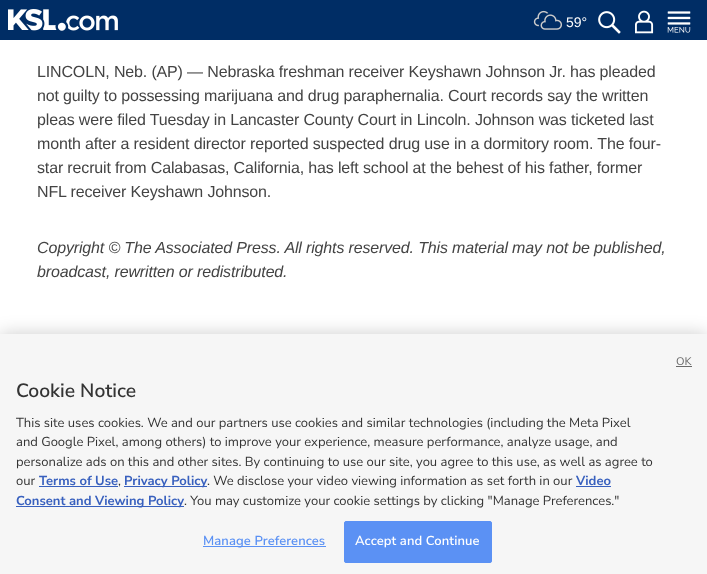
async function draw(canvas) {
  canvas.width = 707;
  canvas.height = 574;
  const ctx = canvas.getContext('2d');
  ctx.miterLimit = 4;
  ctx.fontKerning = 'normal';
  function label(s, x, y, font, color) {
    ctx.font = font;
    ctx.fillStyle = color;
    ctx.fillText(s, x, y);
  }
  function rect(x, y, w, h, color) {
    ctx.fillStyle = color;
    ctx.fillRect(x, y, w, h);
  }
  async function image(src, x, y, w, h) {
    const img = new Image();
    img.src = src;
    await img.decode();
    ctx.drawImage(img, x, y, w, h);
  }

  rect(0, 0, 707, 574, '#fff');
  rect(0, 0, 707, 40, '#002d65');
  await image('assets/img1.png', 8, 9, 110, 22);
  await image('assets/img2.png', 533, 10, 29, 20);
  label('59°', 566, 27, '14px Liberation Sans', '#fff');
  await image('assets/img3.png', 598, 11, 23, 23);
  await image('assets/img4.png', 635, 10, 19, 24);
  await image('assets/img5.png', 667, 11, 24, 22);
  ctx.letterSpacing = '-0.15px';
  label('LINCOLN, Neb. (AP) — Nebraska freshman receiver Keyshawn Johnson Jr. has pleaded', 37, 77, '16px Liberation Sans', '#444');
  label('not guilty to possessing marijuana and drug paraphernalia. Court records say the written', 37, 101, '16px Liberation Sans', '#444');
  label('pleas were filed Tuesday in Lancaster County Court in Lincoln. Johnson was ticketed last', 37, 125, '16px Liberation Sans', '#444');
  label('month after a resident director reported suspected drug use in a dormitory room. The four-', 37, 149, '16px Liberation Sans', '#444');
  label('star recruit from Calabasas, California, has left school at the behest of his father, former', 37, 173, '16px Liberation Sans', '#444');
  label('NFL receiver Keyshawn Johnson.', 37, 197, '16px Liberation Sans', '#444');
  label('Copyright © The Associated Press. All rights reserved. This material may not be published,', 37, 253, 'italic 16px Liberation Sans', '#444');
  label('broadcast, rewritten or redistributed.', 37, 277, 'italic 16px Liberation Sans', '#444');
  ctx.fillStyle = '#00000033';
  ctx.filter = 'blur(9px)';
  ctx.beginPath();
  ctx.rect(0, 334, 707, 240);
  ctx.fill();
  ctx.filter = 'none';
  rect(0, 334, 707, 240, '#f6f6f6');
  ctx.letterSpacing = '0px';
  label('OK', 676, 365, '11px "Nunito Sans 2"', '#696969');
  rect(676, 366, 16, 1, '#696969');
  label('Cookie Notice', 16, 397, '600 19.25px Nunito Sans', '#343434');
  label('This site uses cookies. We and our partners use cookies and similar technologies (including the Meta Pixel', 16, 427, '13px Nunito Sans', '#343434');
  label('and Google Pixel, among others) to improve your experience, measure performance, analyze usage, and', 16, 446, '13px Nunito Sans', '#343434');
  label('personalize ads on this and other sites. By continuing to use our site, you agree to this use, as well as agree to', 16, 466, '13px Nunito Sans', '#343434');
  label('our', 16, 485, '13px Nunito Sans', '#343434');
  label('Terms of Use', 39, 485, 'bold 13px Nunito Sans', '#3860be');
  rect(39, 486, 79, 1, '#3860be');
  label(',', 118, 485, '13px Nunito Sans', '#343434');
  rect(124, 486, 83, 1, '#3860be');
  label('Privacy Policy', 124, 485, 'bold 13px Nunito Sans', '#3860be');
  label('. We disclose your video viewing information as set forth in our', 207, 485, '13px Nunito Sans', '#343434');
  label('Video', 576, 485, 'bold 13px Nunito Sans', '#3860be');
  rect(576, 486, 35, 1, '#3860be');
  rect(16, 506, 168, 1, '#3860be');
  label('Consent and Viewing Policy', 16, 505, 'bold 13px Nunito Sans', '#3860be');
  label('. You may customize your cookie settings by clicking "Manage Preferences."', 184, 505, '13px Nunito Sans', '#343434');
  rect(203, 546, 123, 1, '#5b91f4');
  ctx.letterSpacing = '0.1px';
  label('Manage Preferences', 203, 545, '600 13px Nunito Sans', '#5b91f4');
  ctx.beginPath();
  ctx.roundRect(344.5, 521.5, 147, 41, 1.5);
  ctx.fill();
  ctx.strokeStyle = '#5b91f4';
  ctx.stroke();
  label('Accept and Continue', 355, 545, '600 13px Nunito Sans', '#fff');
}

draw(document.querySelector('canvas'));
